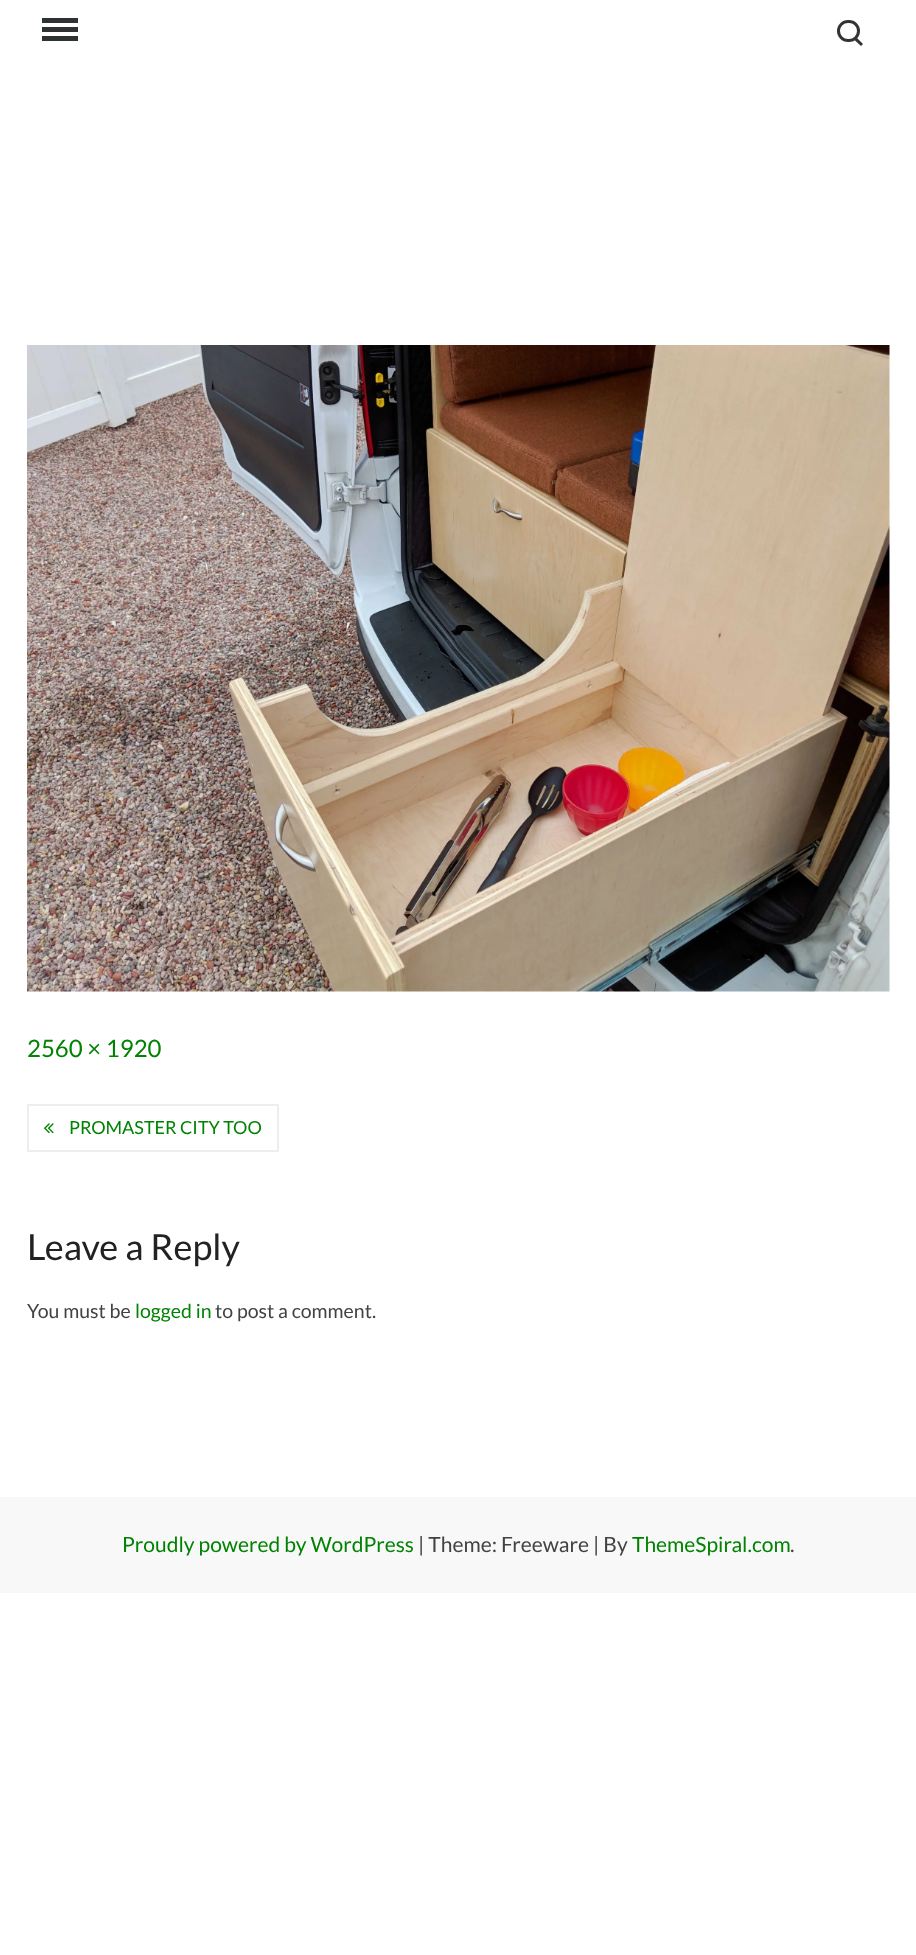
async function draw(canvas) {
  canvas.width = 916;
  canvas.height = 1955;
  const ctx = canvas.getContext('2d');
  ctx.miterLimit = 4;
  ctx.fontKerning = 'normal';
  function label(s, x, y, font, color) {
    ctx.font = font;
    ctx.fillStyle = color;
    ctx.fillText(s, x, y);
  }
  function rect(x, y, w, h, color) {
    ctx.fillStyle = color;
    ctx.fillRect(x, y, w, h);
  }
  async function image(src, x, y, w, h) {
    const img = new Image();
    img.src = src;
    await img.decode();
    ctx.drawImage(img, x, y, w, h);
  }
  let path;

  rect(0, 0, 916, 1955, '#fff');
  rect(42, 27, 36, 5, '#2e3233');
  rect(42, 18, 36, 5, '#2e3233');
  rect(42, 36, 36, 5, '#2e3233');
  ctx.beginPath();
  ctx.roundRect(838.5, 21.5, 20, 19, 9.5);
  ctx.strokeStyle = '#333';
  ctx.lineWidth = 3;
  ctx.stroke();
  ctx.fillStyle = '#333';
  path = new Path2D('M857 38L863 44L861 46L854.5 40Z');
  ctx.fill(path);
  await image('assets/img1.png', 27, 345, 863, 647);
  label('2560 × 1920', 27, 1057, '24px Lato', '#008202');
  ctx.strokeStyle = '#eee';
  ctx.lineWidth = 2;
  ctx.strokeRect(28, 1105, 250, 46);
  await image('assets/img2.png', 44, 1123, 10, 11);
  label('PROMASTER CITY TOO', 69, 1134, '18px Lato', '#008202');
  label('Leave a Reply', 27, 1260, '36px Lato', '#222');
  label('You must be', 27, 1318, '19.5px Lato', '#424242');
  label('logged in', 135, 1318, '19.5px Lato', '#008202');
  label('to post a comment.', 215, 1318, '19.5px Lato', '#424242');
  rect(0, 1497, 916, 96, '#f8f8f8');
  label('Proudly powered by WordPress', 122, 1552, '21px Lato', '#008202');
  label('| Theme: Freeware | By', 418, 1552, '21px Lato', '#424242');
  label('ThemeSpiral.com', 632, 1552, '21px Lato', '#008202');
  label('.', 790, 1552, '21px Lato', '#424242');
}

draw(document.querySelector('canvas'));
